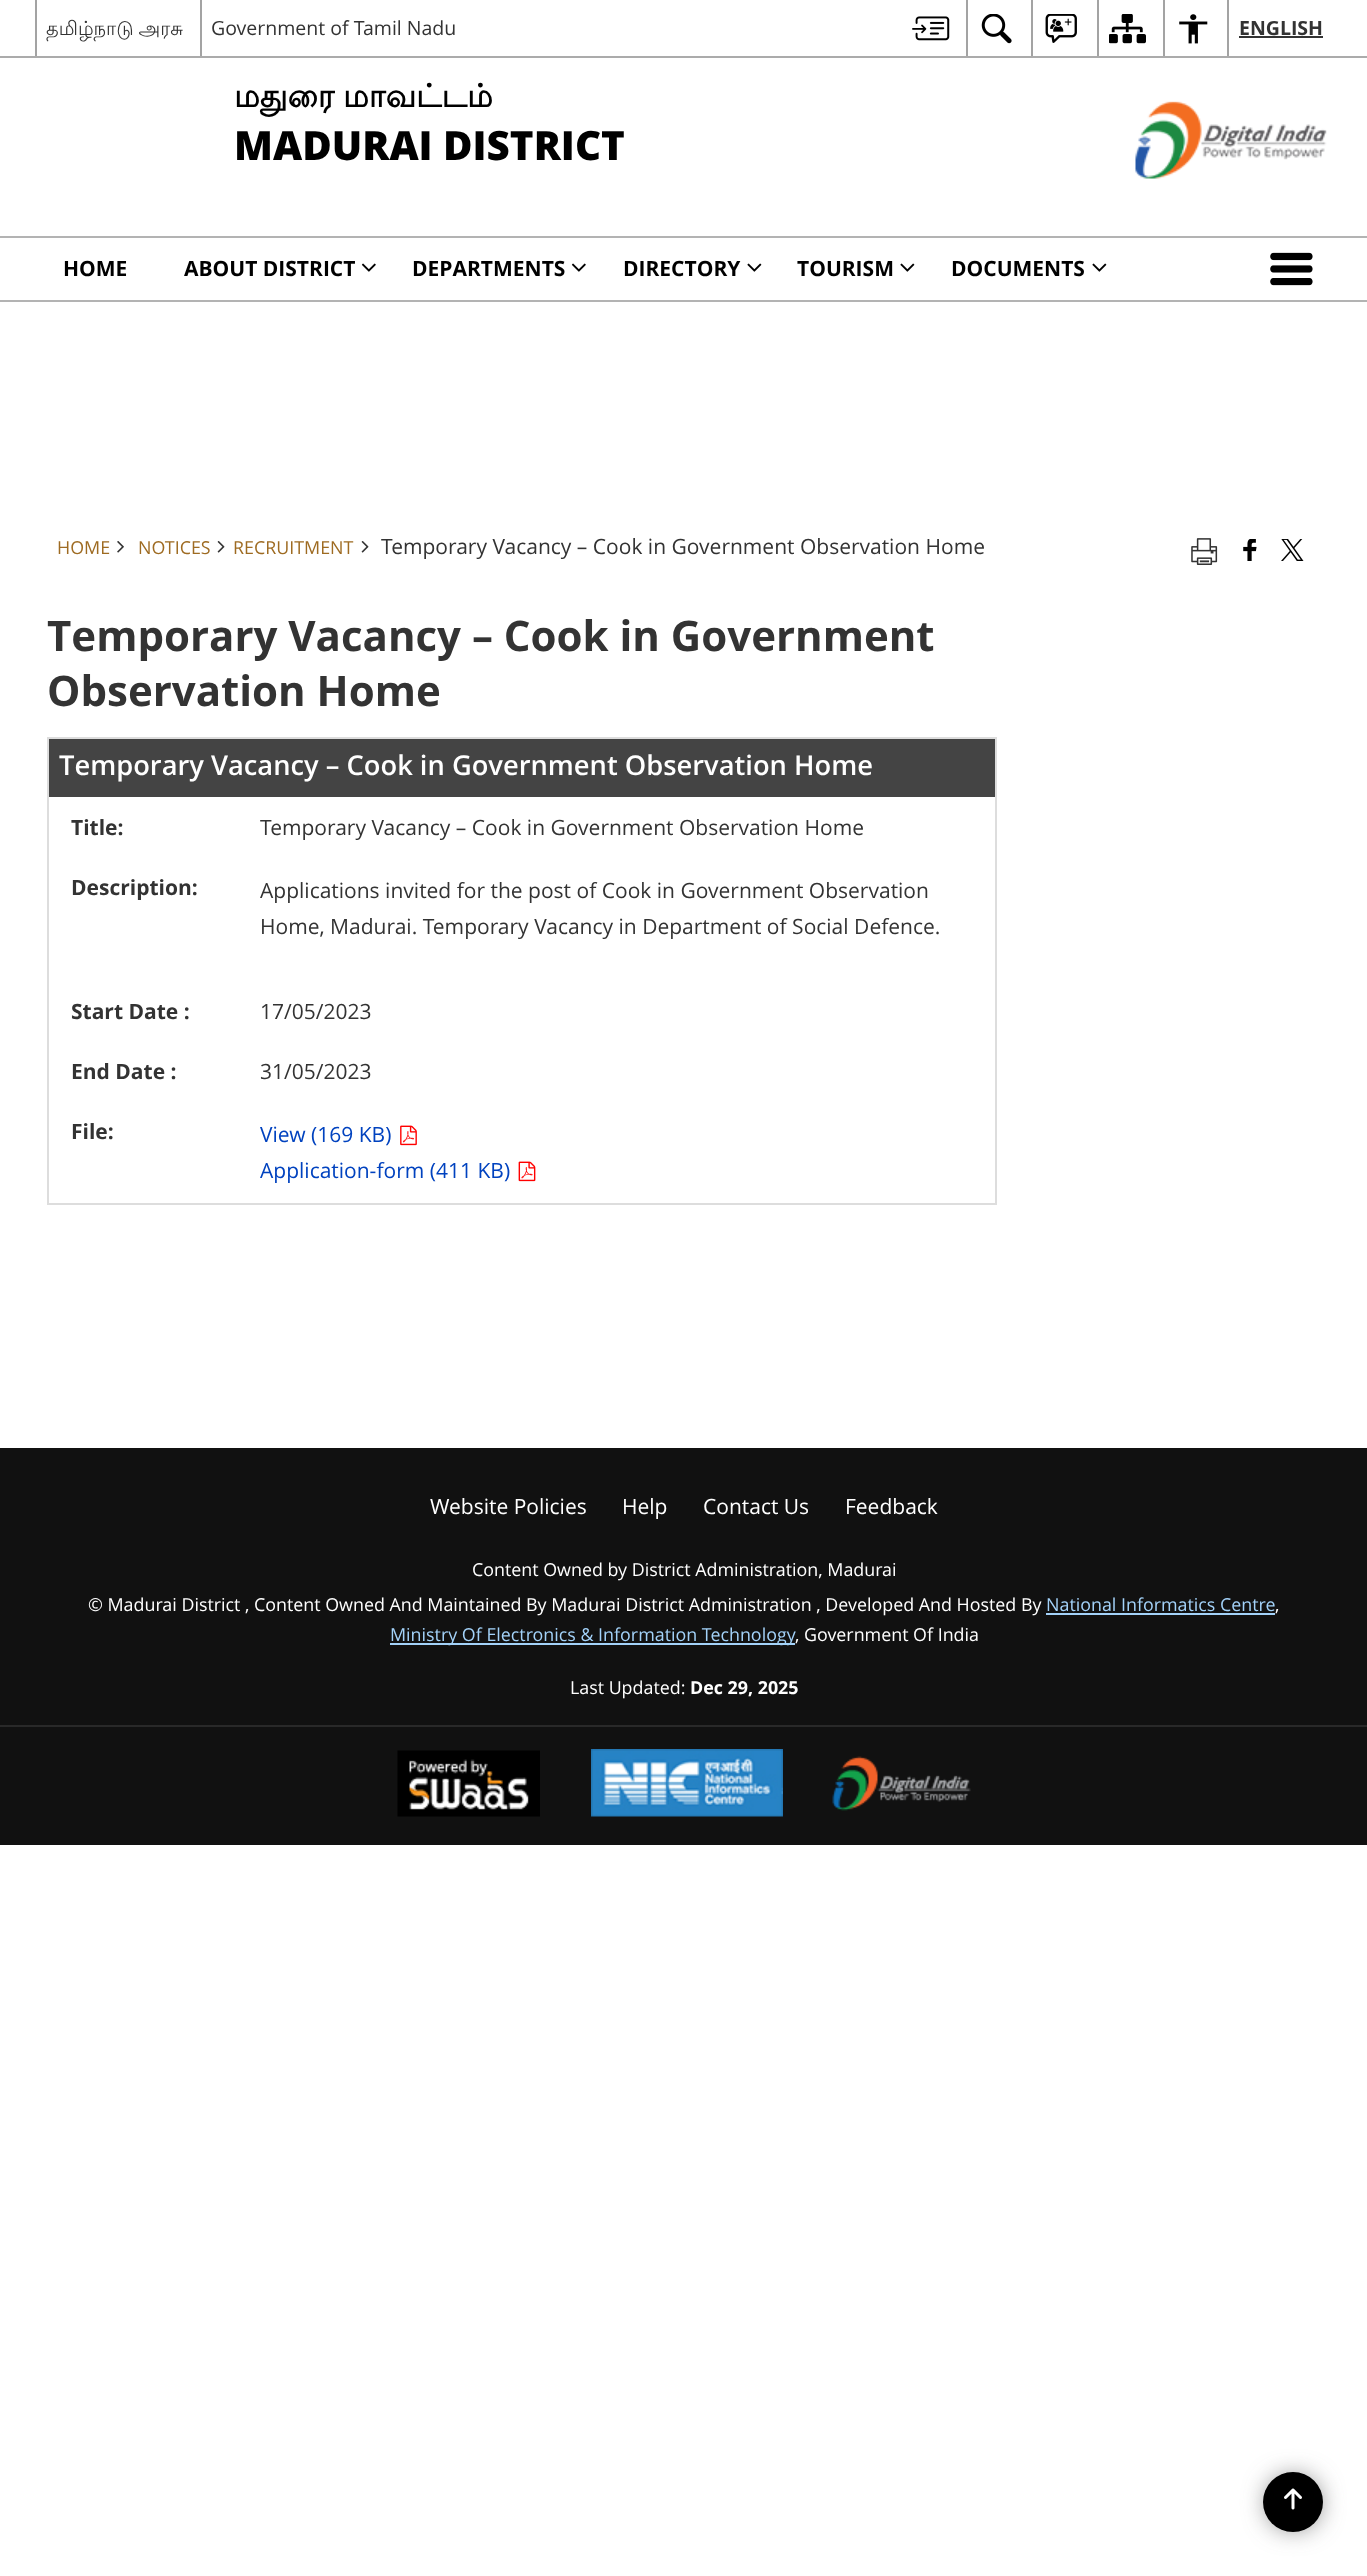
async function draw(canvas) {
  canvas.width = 1367;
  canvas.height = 2576;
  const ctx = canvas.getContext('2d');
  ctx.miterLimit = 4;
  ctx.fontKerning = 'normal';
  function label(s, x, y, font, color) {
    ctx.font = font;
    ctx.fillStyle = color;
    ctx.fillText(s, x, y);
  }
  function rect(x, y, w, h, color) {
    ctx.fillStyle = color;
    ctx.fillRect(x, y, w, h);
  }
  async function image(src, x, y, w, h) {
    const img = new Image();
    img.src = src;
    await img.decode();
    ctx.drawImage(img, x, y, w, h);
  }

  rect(0, 0, 1367, 2576, '#fff');
  rect(0, 56, 1367, 2, '#ababab');
  rect(35, 0, 2, 56, '#a3a3a3');
  ctx.wordSpacing = '-1px';
  label('தமிழ்நாடு அரசு', 46, 35, '19.5px Lohit Tamil', '#333');
  rect(200, 0, 2, 56, '#a3a3a3');
  ctx.wordSpacing = '0px';
  label('Government of Tamil Nadu', 211, 35, '19.5px Open Sans', '#333');
  await image('assets/img1.png', 912, 16, 38, 25);
  rect(966, 0, 2, 56, '#a3a3a3');
  await image('assets/img2.png', 981, 14, 31, 30);
  rect(1031, 0, 2, 56, '#a3a3a3');
  await image('assets/img3.png', 1045, 14, 32, 29);
  rect(1097, 0, 2, 56, '#a3a3a3');
  await image('assets/img4.png', 1109, 14, 37, 30);
  rect(1163, 0, 2, 56, '#a3a3a3');
  await image('assets/img5.png', 1179, 14, 29, 30);
  rect(1227, 0, 2, 56, '#a3a3a3');
  label('ENGLISH', 1239, 35, 'bold 19.5px Open Sans', '#333');
  rect(1239, 36, 84, 2, '#333');
  ctx.wordSpacing = '-1px';
  label('மதுரை மாவட்டம்', 234, 107, 'bold 32px Lohit Tamil', '#000');
  ctx.wordSpacing = '0px';
  label('MADURAI DISTRICT', 234, 160, '800 40.25px Open Sans', '#000');
  await image('assets/img6.png', 1135, 101, 192, 78);
  rect(0, 236, 1367, 2, '#b3b3b3');
  rect(0, 300, 1367, 2, '#b3b3b3');
  label('HOME', 63, 276, 'bold 21px Open Sans', '#000');
  label('ABOUT DISTRICT', 184, 276, 'bold 21px Open Sans', '#000');
  await image('assets/img7.png', 361, 263, 15, 9);
  label('DEPARTMENTS', 412, 276, 'bold 21px Open Sans', '#000');
  await image('assets/img7.png', 571, 263, 15, 9);
  label('DIRECTORY', 623, 276, 'bold 21px Open Sans', '#000');
  await image('assets/img8.png', 747, 263, 15, 9);
  label('TOURISM', 797, 276, 'bold 21px Open Sans', '#000');
  await image('assets/img8.png', 900, 263, 15, 9);
  label('DOCUMENTS', 951, 276, 'bold 21px Open Sans', '#000');
  await image('assets/img8.png', 1092, 263, 15, 9);
  await image('assets/img9.png', 1270, 252, 43, 34);
  label('HOME', 57, 554, '17.85px Open Sans', '#9e6b22');
  await image('assets/img10.png', 117, 541, 7, 12);
  label('NOTICES', 138, 554, '17.85px Open Sans', '#9e6b22');
  await image('assets/img11.png', 217, 541, 8, 12);
  label('RECRUITMENT', 233, 554, '17.85px Open Sans', '#9e6b22');
  await image('assets/img11.png', 361, 541, 8, 12);
  label('Temporary Vacancy – Cook in Government Observation Home', 381, 554, '21px Open Sans', '#333');
  await image('assets/img12.png', 1191, 538, 27, 27);
  await image('assets/img13.png', 1243, 539, 14, 22);
  await image('assets/img14.png', 1281, 539, 23, 22);
  label('Temporary Vacancy – Cook in Government', 47, 651, 'bold 42px Open Sans', '#333');
  label('Observation Home', 47, 706, 'bold 42px Open Sans', '#333');
  rect(47, 737, 949, 2, '#ddd');
  rect(995, 737, 2, 468, '#ddd');
  rect(47, 1203, 949, 2, '#ddd');
  rect(47, 737, 2, 468, '#ddd');
  rect(49, 739, 946, 58, '#444');
  label('Temporary Vacancy – Cook in Government Observation Home', 59, 775, '600 27.3px Open Sans', '#fff');
  label('Title:', 71, 835, 'bold 21px Open Sans', '#333');
  label('Temporary Vacancy – Cook in Government Observation Home', 260, 835, '21px Open Sans', '#333');
  label('Description:', 71, 895, 'bold 21px Open Sans', '#333');
  label('Applications invited for the post of Cook in Government Observation', 260, 898, '21px Open Sans', '#333');
  label('Home, Madurai. Temporary Vacancy in Department of Social Defence.', 260, 934, '21px Open Sans', '#333');
  label('Start Date :', 71, 1019, 'bold 21px Open Sans', '#333');
  label('17/05/2023', 260, 1019, '21px Open Sans', '#333');
  label('End Date :', 71, 1079, 'bold 21px Open Sans', '#333');
  label('31/05/2023', 260, 1079, '21px Open Sans', '#333');
  label('File:', 71, 1139, 'bold 21px Open Sans', '#333');
  label('View (169 KB)', 260, 1142, '21px Open Sans', '#0042bf');
  await image('assets/img15.png', 400, 1125, 17, 21);
  label('Application-form (411 KB)', 260, 1178, '21px Open Sans', '#0042bf');
  await image('assets/img16.png', 518, 1161, 18, 21);
  rect(0, 1448, 1367, 397, '#111');
  label('Website Policies', 430, 1514, '21px Open Sans', '#fff');
  label('Help', 622, 1514, '21px Open Sans', '#fff');
  label('Contact Us', 703, 1514, '21px Open Sans', '#fff');
  label('Feedback', 845, 1514, '21px Open Sans', '#fff');
  label('Content Owned by District Administration, Madurai', 472, 1576, '17.85px Open Sans', '#fff');
  label('© Madurai District , Content Owned And Maintained By Madurai District Administration , Developed And Hosted By', 88, 1611, '17.85px Open Sans', '#fff');
  label('National Informatics Centre', 1046, 1611, '17.85px Open Sans', '#a3d2f9');
  rect(1046, 1613, 229, 2, '#a3d2f9');
  label(',', 1275, 1611, '17.85px Open Sans', '#fff');
  rect(390, 1643, 405, 2, '#a3d2f9');
  label('Ministry Of Electronics & Information Technology', 390, 1641, '17.85px Open Sans', '#a3d2f9');
  label(', Government Of India', 795, 1641, '17.85px Open Sans', '#fff');
  label('Last Updated:', 570, 1694, '17.85px Open Sans', '#fff');
  label('Dec 29, 2025', 690, 1694, 'bold 17.85px Open Sans', '#fff');
  rect(0, 1725, 1367, 2, '#292929');
  await image('assets/img17.png', 397, 1750, 143, 67);
  await image('assets/img18.png', 591, 1749, 192, 68);
  await image('assets/img19.png', 832, 1756, 139, 55);
  ctx.fillStyle = '#3c3c3c';
  ctx.filter = 'blur(14px)';
  ctx.beginPath();
  ctx.roundRect(1271, 2480, 45, 45, 22.5);
  ctx.fill();
  ctx.filter = 'none';
  ctx.fillStyle = '#000';
  ctx.beginPath();
  ctx.arc(1293, 2502, 30, 0, 2 * Math.PI);
  ctx.fill();
  await image('assets/img20.png', 1284, 2488, 18, 22);
}

draw(document.querySelector('canvas'));
